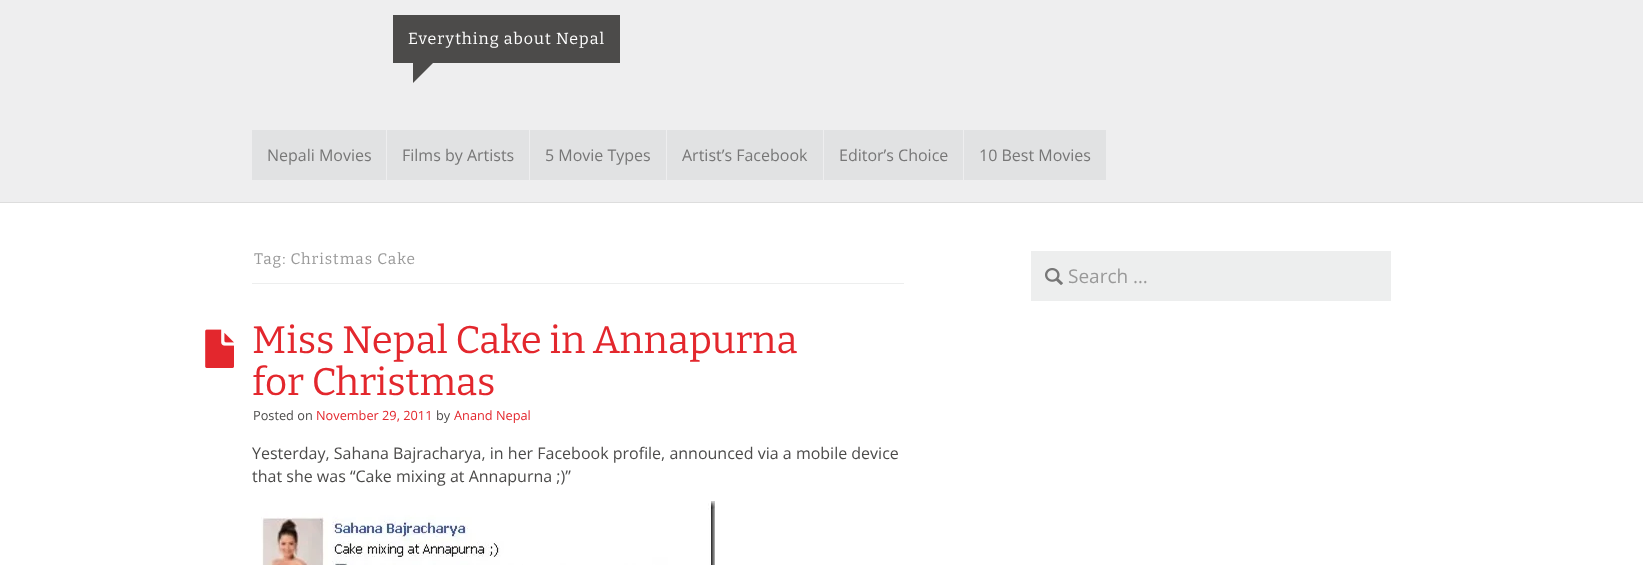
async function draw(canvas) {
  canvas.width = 1643;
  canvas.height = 565;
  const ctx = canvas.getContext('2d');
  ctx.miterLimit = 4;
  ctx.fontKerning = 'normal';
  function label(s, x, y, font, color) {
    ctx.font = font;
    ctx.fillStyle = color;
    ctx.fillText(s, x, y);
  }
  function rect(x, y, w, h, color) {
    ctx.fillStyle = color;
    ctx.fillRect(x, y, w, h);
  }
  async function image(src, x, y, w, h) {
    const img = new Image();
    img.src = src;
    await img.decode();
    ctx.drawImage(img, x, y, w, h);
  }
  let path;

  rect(0, 0, 1643, 565, '#fff');
  rect(0, 0, 1643, 202, '#eeeeef');
  rect(0, 202, 1643, 1, '#ddd');
  rect(393, 15, 227, 48, '#4c4b4a');
  ctx.letterSpacing = '1px';
  label('Everything about Nepal', 408, 44, '16px Bitter', '#fff');
  ctx.fillStyle = '#4c4b4a';
  path = new Path2D('M413 83V63H433Z');
  ctx.fill(path);
  rect(252, 130, 134, 50, '#e1e2e3');
  ctx.letterSpacing = '0px';
  label('Nepali Movies', 267, 161, '16px Open Sans', '#777');
  rect(387, 130, 142, 50, '#e1e2e3');
  label('Films by Artists', 402, 161, '16px Open Sans', '#777');
  rect(530, 130, 136, 50, '#e1e2e3');
  label('5 Movie Types', 545, 161, '16px Open Sans', '#777');
  rect(667, 130, 156, 50, '#e1e2e3');
  label('Artist’s Facebook', 682, 161, '16px Open Sans', '#777');
  rect(824, 130, 139, 50, '#e1e2e3');
  label('Editor’s Choice', 839, 161, '16px Open Sans', '#777');
  rect(964, 130, 142, 50, '#e1e2e3');
  label('10 Best Movies', 979, 161, '16px Open Sans', '#777');
  rect(252, 283, 652, 1, '#edeeee');
  ctx.letterSpacing = '1px';
  label('Tag: Christmas Cake', 254, 264, '15.4px Bitter', '#999');
  await image('assets/img1.png', 205, 329, 29, 39);
  ctx.letterSpacing = '0px';
  label('Miss Nepal Cake in Annapurna', 252, 353, '38.4px Bitter', '#e3272d');
  label('for Christmas', 252, 395, '38.4px Bitter', '#e3272d');
  label('Posted on', 253, 420, '12.75px Open Sans', '#4c4b4a');
  label('November 29, 2011', 316, 420, '12.75px Open Sans', '#e3272d');
  label('by', 436, 420, '12.75px Open Sans', '#4c4b4a');
  label('Anand Nepal', 454, 420, '12.75px Open Sans', '#e3272d');
  label('Yesterday, Sahana Bajracharya, in her Facebook profile, announced via a mobile device', 252, 459, '16px Open Sans', '#4c4b4a');
  label('that she was “Cake mixing at Annapurna ;)”', 252, 482, '16px Open Sans', '#4c4b4a');
  await image('assets/img2.png', 261, 501, 454, 64);
  rect(1031, 251, 360, 50, '#edeeee');
  await image('assets/img3.png', 1045, 268, 18, 17);
  label('Search …', 1068, 283, '19px Open Sans', '#999');
}

draw(document.querySelector('canvas'));
